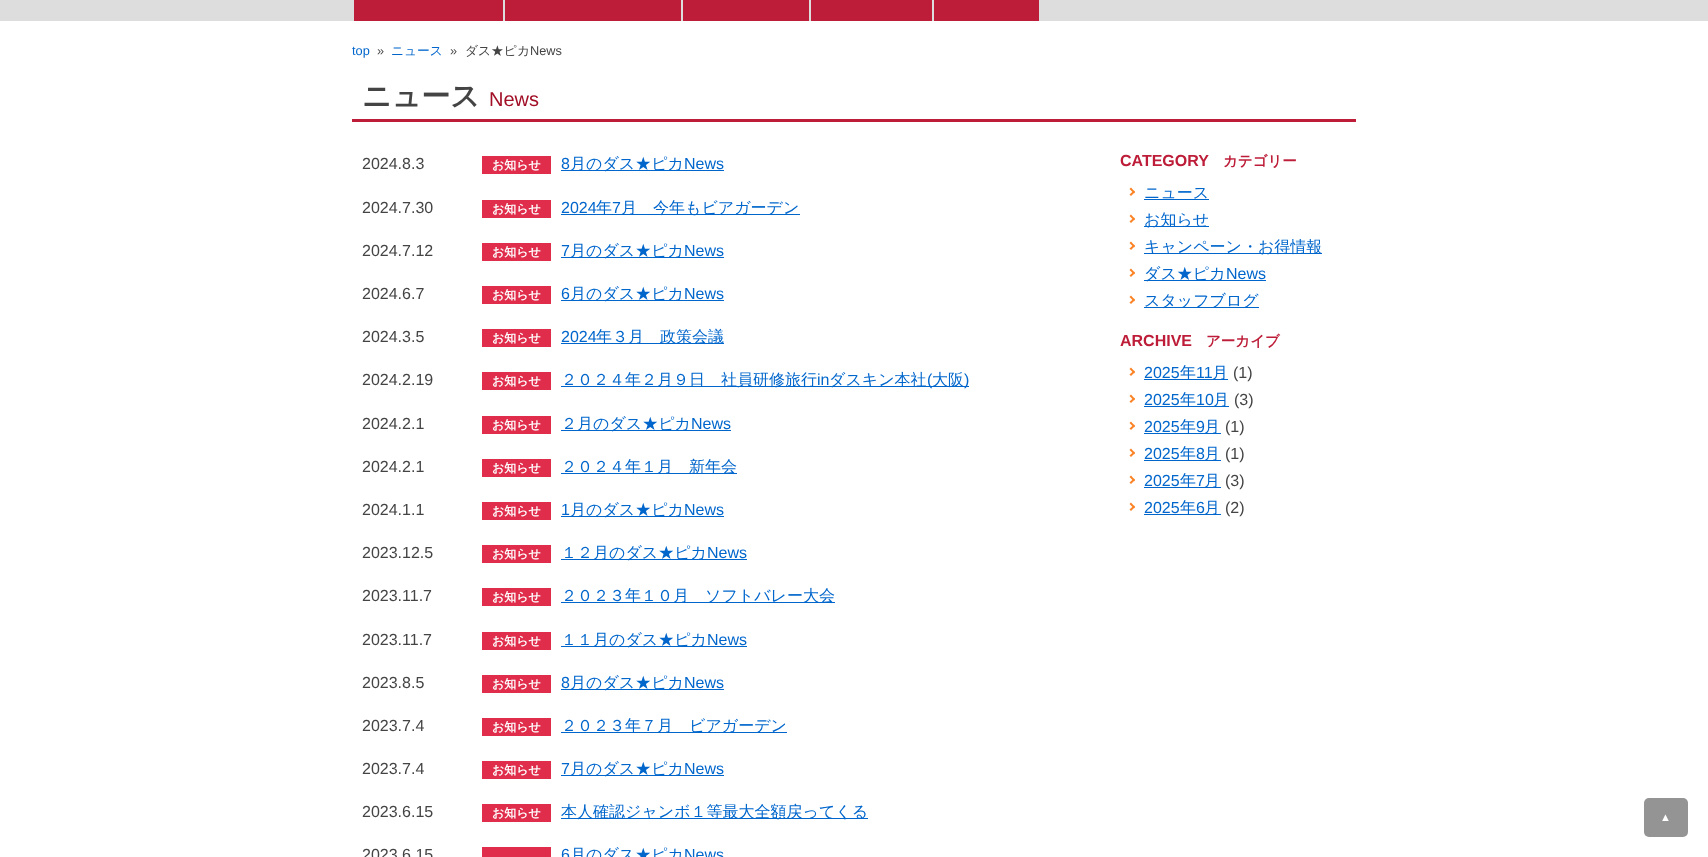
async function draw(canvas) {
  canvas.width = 1708;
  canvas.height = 857;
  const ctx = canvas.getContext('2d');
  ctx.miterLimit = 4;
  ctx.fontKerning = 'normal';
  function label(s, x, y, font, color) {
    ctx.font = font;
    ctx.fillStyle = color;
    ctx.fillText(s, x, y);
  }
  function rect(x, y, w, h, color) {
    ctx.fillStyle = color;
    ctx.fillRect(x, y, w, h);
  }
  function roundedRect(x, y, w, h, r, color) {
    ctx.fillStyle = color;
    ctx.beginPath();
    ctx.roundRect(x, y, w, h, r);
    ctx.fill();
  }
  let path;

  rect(0, 0, 1708, 857, '#fff');
  rect(0, 0, 1708, 21, '#ddd');
  rect(354, 0, 149, 21, '#bd1d38');
  rect(505, 0, 176, 21, '#bd1d38');
  rect(683, 0, 126, 21, '#bd1d38');
  rect(811, 0, 121, 21, '#bd1d38');
  rect(934, 0, 105, 21, '#bd1d38');
  label('top', 352, 55, '12.75px Liberation Sans', '#06c');
  label('»', 377, 55, '12.75px Liberation Sans', '#444');
  label('ニュース', 391, 55, '500 12.75px WenQuanYi Zen Hei', '#06c');
  label('»', 450, 55, '12.75px Liberation Sans', '#444');
  label('ダス★ピカ', 465, 55, '500 12.75px WenQuanYi Zen Hei', '#444');
  label('News', 530, 55, '12.75px Liberation Sans', '#444');
  rect(352, 119, 1004, 3, '#bd1d38');
  label('ニュース', 362, 106, 'bold 29px WenQuanYi Zen Hei', '#444');
  label('News', 489, 106, '20px Liberation Sans', '#a10e26');
  label('2024.8.3', 362, 169, '16px Liberation Sans', '#444');
  rect(482, 156, 69, 18, '#df2d4b');
  label('お知らせ', 492, 169, 'bold 12px WenQuanYi Zen Hei', '#fff');
  label('8', 561, 169, '16px Liberation Sans', '#06c');
  rect(561, 170, 163, 1, '#06c');
  label('月のダス★ピカ', 570, 169, '500 16px WenQuanYi Zen Hei', '#06c');
  label('News', 684, 169, '16px Liberation Sans', '#06c');
  label('2024.7.30', 362, 213, '16px Liberation Sans', '#444');
  rect(482, 200, 69, 18, '#df2d4b');
  label('お知らせ', 492, 213, 'bold 12px WenQuanYi Zen Hei', '#fff');
  label('2024', 561, 213, '16px Liberation Sans', '#06c');
  rect(561, 214, 239, 1, '#06c');
  label('年', 596, 213, '500 16px WenQuanYi Zen Hei', '#06c');
  label('7', 612, 213, '16px Liberation Sans', '#06c');
  label('月　今年もビアガーデン', 621, 213, '500 16px WenQuanYi Zen Hei', '#06c');
  label('2024.7.12', 362, 256, '16px Liberation Sans', '#444');
  rect(482, 243, 69, 18, '#df2d4b');
  label('お知らせ', 492, 256, 'bold 12px WenQuanYi Zen Hei', '#fff');
  label('7', 561, 256, '16px Liberation Sans', '#06c');
  rect(561, 257, 163, 1, '#06c');
  label('月のダス★ピカ', 570, 256, '500 16px WenQuanYi Zen Hei', '#06c');
  label('News', 684, 256, '16px Liberation Sans', '#06c');
  label('2024.6.7', 362, 299, '16px Liberation Sans', '#444');
  rect(482, 286, 69, 18, '#df2d4b');
  label('お知らせ', 492, 299, 'bold 12px WenQuanYi Zen Hei', '#fff');
  label('6', 561, 299, '16px Liberation Sans', '#06c');
  rect(561, 300, 163, 1, '#06c');
  label('月のダス★ピカ', 570, 299, '500 16px WenQuanYi Zen Hei', '#06c');
  label('News', 684, 299, '16px Liberation Sans', '#06c');
  label('2024.3.5', 362, 342, '16px Liberation Sans', '#444');
  rect(482, 329, 69, 18, '#df2d4b');
  label('お知らせ', 492, 342, 'bold 12px WenQuanYi Zen Hei', '#fff');
  label('2024', 561, 342, '16px Liberation Sans', '#06c');
  rect(561, 343, 163, 1, '#06c');
  label('年３月　政策会議', 596, 342, '500 16px WenQuanYi Zen Hei', '#06c');
  label('2024.2.19', 362, 385, '16px Liberation Sans', '#444');
  rect(482, 372, 69, 18, '#df2d4b');
  label('お知らせ', 492, 385, 'bold 12px WenQuanYi Zen Hei', '#fff');
  rect(561, 386, 408, 1, '#06c');
  label('２０２４年２月９日　社員研修旅行', 561, 385, '500 16px WenQuanYi Zen Hei', '#06c');
  label('in', 817, 385, '16px Liberation Sans', '#06c');
  label('ダスキン本社', 829, 385, '500 16px WenQuanYi Zen Hei', '#06c');
  label('(', 927, 385, '16px Liberation Sans', '#06c');
  label('大阪', 932, 385, '500 16px WenQuanYi Zen Hei', '#06c');
  label(')', 964, 385, '16px Liberation Sans', '#06c');
  label('2024.2.1', 362, 429, '16px Liberation Sans', '#444');
  rect(482, 416, 69, 18, '#df2d4b');
  label('お知らせ', 492, 429, 'bold 12px WenQuanYi Zen Hei', '#fff');
  rect(561, 430, 170, 1, '#06c');
  label('２月のダス★ピカ', 561, 429, '500 16px WenQuanYi Zen Hei', '#06c');
  label('News', 691, 429, '16px Liberation Sans', '#06c');
  label('2024.2.1', 362, 472, '16px Liberation Sans', '#444');
  rect(482, 459, 69, 18, '#df2d4b');
  label('お知らせ', 492, 472, 'bold 12px WenQuanYi Zen Hei', '#fff');
  rect(561, 473, 176, 1, '#06c');
  label('２０２４年１月　新年会', 561, 472, '500 16px WenQuanYi Zen Hei', '#06c');
  label('2024.1.1', 362, 515, '16px Liberation Sans', '#444');
  rect(482, 502, 69, 18, '#df2d4b');
  label('お知らせ', 492, 515, 'bold 12px WenQuanYi Zen Hei', '#fff');
  label('1', 561, 515, '16px Liberation Sans', '#06c');
  rect(561, 516, 163, 1, '#06c');
  label('月のダス★ピカ', 570, 515, '500 16px WenQuanYi Zen Hei', '#06c');
  label('News', 684, 515, '16px Liberation Sans', '#06c');
  label('2023.12.5', 362, 558, '16px Liberation Sans', '#444');
  rect(482, 545, 69, 18, '#df2d4b');
  label('お知らせ', 492, 558, 'bold 12px WenQuanYi Zen Hei', '#fff');
  rect(561, 559, 186, 1, '#06c');
  label('１２月のダス★ピカ', 561, 558, '500 16px WenQuanYi Zen Hei', '#06c');
  label('News', 707, 558, '16px Liberation Sans', '#06c');
  label('2023.11.7', 362, 601, '16px Liberation Sans', '#444');
  rect(482, 588, 69, 18, '#df2d4b');
  label('お知らせ', 492, 601, 'bold 12px WenQuanYi Zen Hei', '#fff');
  rect(561, 602, 274, 1, '#06c');
  label('２０２３年１０月　ソフトバレー大会', 561, 601, '500 16px WenQuanYi Zen Hei', '#06c');
  label('2023.11.7', 362, 645, '16px Liberation Sans', '#444');
  rect(482, 632, 69, 18, '#df2d4b');
  label('お知らせ', 492, 645, 'bold 12px WenQuanYi Zen Hei', '#fff');
  rect(561, 646, 186, 1, '#06c');
  label('１１月のダス★ピカ', 561, 645, '500 16px WenQuanYi Zen Hei', '#06c');
  label('News', 707, 645, '16px Liberation Sans', '#06c');
  label('2023.8.5', 362, 688, '16px Liberation Sans', '#444');
  rect(482, 675, 69, 18, '#df2d4b');
  label('お知らせ', 492, 688, 'bold 12px WenQuanYi Zen Hei', '#fff');
  label('8', 561, 688, '16px Liberation Sans', '#06c');
  rect(561, 689, 163, 1, '#06c');
  label('月のダス★ピカ', 570, 688, '500 16px WenQuanYi Zen Hei', '#06c');
  label('News', 684, 688, '16px Liberation Sans', '#06c');
  label('2023.7.4', 362, 731, '16px Liberation Sans', '#444');
  rect(482, 718, 69, 18, '#df2d4b');
  label('お知らせ', 492, 731, 'bold 12px WenQuanYi Zen Hei', '#fff');
  rect(561, 732, 226, 1, '#06c');
  label('２０２３年７月　ビアガーデン', 561, 731, '500 16px WenQuanYi Zen Hei', '#06c');
  label('2023.7.4', 362, 774, '16px Liberation Sans', '#444');
  rect(482, 761, 69, 18, '#df2d4b');
  label('お知らせ', 492, 774, 'bold 12px WenQuanYi Zen Hei', '#fff');
  label('7', 561, 774, '16px Liberation Sans', '#06c');
  rect(561, 775, 163, 1, '#06c');
  label('月のダス★ピカ', 570, 774, '500 16px WenQuanYi Zen Hei', '#06c');
  label('News', 684, 774, '16px Liberation Sans', '#06c');
  label('2023.6.15', 362, 817, '16px Liberation Sans', '#444');
  rect(482, 804, 69, 18, '#df2d4b');
  label('お知らせ', 492, 817, 'bold 12px WenQuanYi Zen Hei', '#fff');
  rect(561, 818, 307, 1, '#06c');
  label('本人確認ジャンボ１等最大全額戻ってくる', 561, 817, '500 16px WenQuanYi Zen Hei', '#06c');
  label('2023.6.15', 362, 860, '16px Liberation Sans', '#444');
  rect(482, 847, 69, 10, '#df2d4b');
  label('6', 561, 860, '16px Liberation Sans', '#06c');
  label('月のダス★ピカ', 570, 860, '500 16px WenQuanYi Zen Hei', '#06c');
  label('News', 684, 860, '16px Liberation Sans', '#06c');
  label('CATEGORY', 1120, 166, 'bold 16px Liberation Sans', '#bd1d38');
  label('カテゴリー', 1223, 166, 'bold 14.5px WenQuanYi Zen Hei', '#bd1d38');
  ctx.fillStyle = '#fb8225';
  path = new Path2D('M1129.5 189L1131 187.5L1135 192L1134 193.5Z');
  ctx.fill(path);
  path = new Path2D('M1129.5 194.5L1134 190.5L1135 192L1131 196Z');
  ctx.fill(path);
  label('ニュース', 1144, 198, '500 16px WenQuanYi Zen Hei', '#06c');
  rect(1144, 199, 65, 1, '#06c');
  ctx.fillStyle = '#fb8225';
  path = new Path2D('M1129.5 216L1131 214.5L1135 219L1134 220.5Z');
  ctx.fill(path);
  path = new Path2D('M1129.5 221.5L1134 217.5L1135 219L1131 223Z');
  ctx.fill(path);
  rect(1144, 226, 65, 1, '#06c');
  label('お知らせ', 1144, 225, '500 16px WenQuanYi Zen Hei', '#06c');
  ctx.fillStyle = '#fb8225';
  path = new Path2D('M1129.5 243L1131 241.5L1135 246L1134 247.5Z');
  ctx.fill(path);
  path = new Path2D('M1129.5 248.5L1134 244.5L1135 246L1131 250Z');
  ctx.fill(path);
  rect(1144, 253, 178, 1, '#06c');
  label('キャンペーン・お得情報', 1144, 252, '500 16px WenQuanYi Zen Hei', '#06c');
  ctx.fillStyle = '#fb8225';
  path = new Path2D('M1129.5 270L1131 268.5L1135 273L1134 274.5Z');
  ctx.fill(path);
  path = new Path2D('M1129.5 275.5L1134 271.5L1135 273L1131 277Z');
  ctx.fill(path);
  rect(1144, 280, 122, 1, '#06c');
  label('ダス★ピカ', 1144, 279, '500 16px WenQuanYi Zen Hei', '#06c');
  label('News', 1226, 279, '16px Liberation Sans', '#06c');
  ctx.fillStyle = '#fb8225';
  path = new Path2D('M1129.5 297L1131 295.5L1135 300L1134 301.5Z');
  ctx.fill(path);
  path = new Path2D('M1129.5 302.5L1134 298.5L1135 300L1131 304Z');
  ctx.fill(path);
  rect(1144, 307, 115, 1, '#06c');
  label('スタッフブログ', 1144, 306, '500 16px WenQuanYi Zen Hei', '#06c');
  label('ARCHIVE', 1120, 346, 'bold 16px Liberation Sans', '#bd1d38');
  label('アーカイブ', 1206, 346, 'bold 14.5px WenQuanYi Zen Hei', '#bd1d38');
  ctx.fillStyle = '#fb8225';
  path = new Path2D('M1129.5 369L1131 367.5L1135 372L1134 373.5Z');
  ctx.fill(path);
  path = new Path2D('M1129.5 374.5L1134 370.5L1135 372L1131 376Z');
  ctx.fill(path);
  label('2025', 1144, 378, '16px Liberation Sans', '#06c');
  rect(1144, 379, 84, 1, '#06c');
  label('年', 1180, 378, '500 16px WenQuanYi Zen Hei', '#06c');
  label('11', 1196, 378, '16px Liberation Sans', '#06c');
  label('月', 1212, 378, '500 16px WenQuanYi Zen Hei', '#06c');
  label('(1)', 1233, 378, '16px Liberation Sans', '#444');
  ctx.fillStyle = '#fb8225';
  path = new Path2D('M1129.5 396L1131 394.5L1135 399L1134 400.5Z');
  ctx.fill(path);
  path = new Path2D('M1129.5 401.5L1134 397.5L1135 399L1131 403Z');
  ctx.fill(path);
  label('2025', 1144, 405, '16px Liberation Sans', '#06c');
  rect(1144, 406, 85, 1, '#06c');
  label('年', 1180, 405, '500 16px WenQuanYi Zen Hei', '#06c');
  label('10', 1196, 405, '16px Liberation Sans', '#06c');
  label('月', 1213, 405, '500 16px WenQuanYi Zen Hei', '#06c');
  label('(3)', 1234, 405, '16px Liberation Sans', '#444');
  ctx.fillStyle = '#fb8225';
  path = new Path2D('M1129.5 423L1131 421.5L1135 426L1134 427.5Z');
  ctx.fill(path);
  path = new Path2D('M1129.5 428.5L1134 424.5L1135 426L1131 430Z');
  ctx.fill(path);
  label('2025', 1144, 432, '16px Liberation Sans', '#06c');
  rect(1144, 433, 77, 1, '#06c');
  label('年', 1180, 432, '500 16px WenQuanYi Zen Hei', '#06c');
  label('9', 1196, 432, '16px Liberation Sans', '#06c');
  label('月', 1204, 432, '500 16px WenQuanYi Zen Hei', '#06c');
  label('(1)', 1225, 432, '16px Liberation Sans', '#444');
  ctx.fillStyle = '#fb8225';
  path = new Path2D('M1129.5 450L1131 448.5L1135 453L1134 454.5Z');
  ctx.fill(path);
  path = new Path2D('M1129.5 455.5L1134 451.5L1135 453L1131 457Z');
  ctx.fill(path);
  label('2025', 1144, 459, '16px Liberation Sans', '#06c');
  rect(1144, 460, 77, 1, '#06c');
  label('年', 1180, 459, '500 16px WenQuanYi Zen Hei', '#06c');
  label('8', 1196, 459, '16px Liberation Sans', '#06c');
  label('月', 1204, 459, '500 16px WenQuanYi Zen Hei', '#06c');
  label('(1)', 1225, 459, '16px Liberation Sans', '#444');
  ctx.fillStyle = '#fb8225';
  path = new Path2D('M1129.5 477L1131 475.5L1135 480L1134 481.5Z');
  ctx.fill(path);
  path = new Path2D('M1129.5 482.5L1134 478.5L1135 480L1131 484Z');
  ctx.fill(path);
  label('2025', 1144, 486, '16px Liberation Sans', '#06c');
  rect(1144, 487, 77, 1, '#06c');
  label('年', 1180, 486, '500 16px WenQuanYi Zen Hei', '#06c');
  label('7', 1196, 486, '16px Liberation Sans', '#06c');
  label('月', 1204, 486, '500 16px WenQuanYi Zen Hei', '#06c');
  label('(3)', 1225, 486, '16px Liberation Sans', '#444');
  ctx.fillStyle = '#fb8225';
  path = new Path2D('M1129.5 504L1131 502.5L1135 507L1134 508.5Z');
  ctx.fill(path);
  path = new Path2D('M1129.5 509.5L1134 505.5L1135 507L1131 511Z');
  ctx.fill(path);
  label('2025', 1144, 513, '16px Liberation Sans', '#06c');
  rect(1144, 514, 77, 1, '#06c');
  label('年', 1180, 513, '500 16px WenQuanYi Zen Hei', '#06c');
  label('6', 1196, 513, '16px Liberation Sans', '#06c');
  label('月', 1204, 513, '500 16px WenQuanYi Zen Hei', '#06c');
  label('(2)', 1225, 513, '16px Liberation Sans', '#444');
  roundedRect(1644, 798, 44, 39, 5, '#949494');
  label('▲', 1660, 821, '11px Liberation Sans', '#fff');
}

draw(document.querySelector('canvas'));
